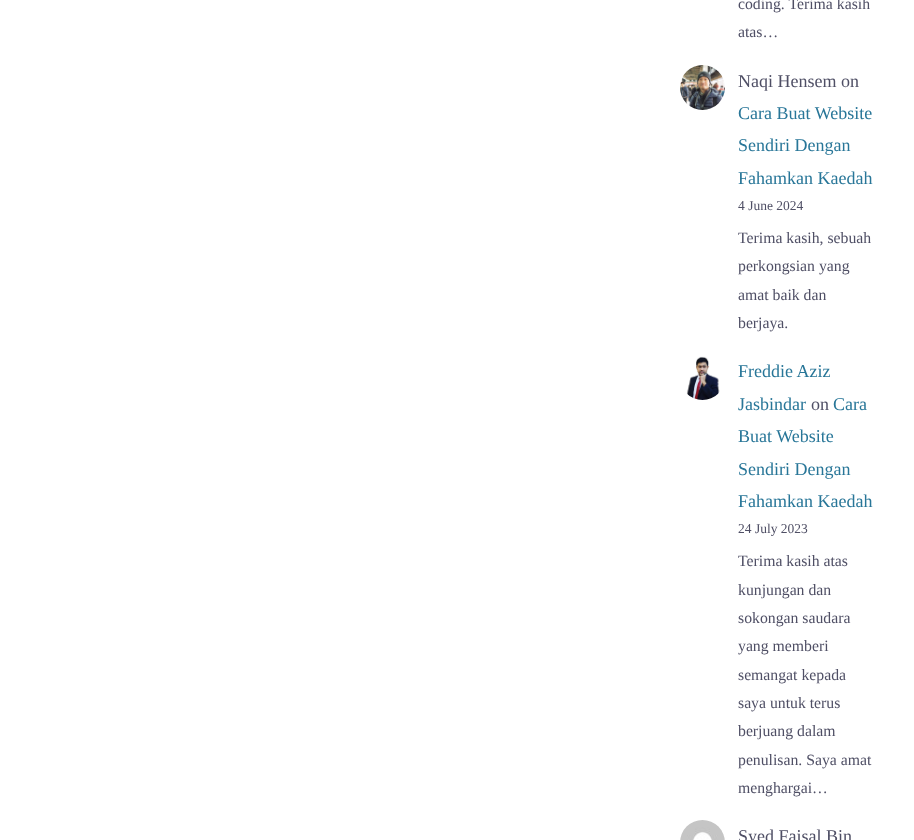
async function draw(canvas) {
  canvas.width = 914;
  canvas.height = 840;
  const ctx = canvas.getContext('2d');
  ctx.miterLimit = 4;
  ctx.fontKerning = 'normal';
  function label(s, x, y, font, color) {
    ctx.font = font;
    ctx.fillStyle = color;
    ctx.fillText(s, x, y);
  }
  function rect(x, y, w, h, color) {
    ctx.fillStyle = color;
    ctx.fillRect(x, y, w, h);
  }
  async function image(src, x, y, w, h) {
    const img = new Image();
    img.src = src;
    await img.decode();
    ctx.drawImage(img, x, y, w, h);
  }

  rect(0, 0, 914, 840, '#fff');
  label('coding. Terima kasih', 738, 9, '15.75px Liberation Serif', '#4f4f65');
  label('atas…', 738, 37, '15.75px Liberation Serif', '#4f4f65');
  await image('assets/img1.png', 680, 65, 45, 45);
  label('Naqi Hensem on', 738, 87, '18px Liberation Serif', '#4f4f65');
  label('Cara Buat Website', 738, 119, '18px Liberation Serif', '#287698');
  label('Sendiri Dengan', 738, 151, '18px Liberation Serif', '#287698');
  label('Fahamkan Kaedah', 738, 184, '18px Liberation Serif', '#287698');
  label('4 June 2024', 738, 210, '13.5px Liberation Serif', '#4f4f65');
  label('Terima kasih, sebuah', 738, 243, '15.75px Liberation Serif', '#4f4f65');
  label('perkongsian yang', 738, 271, '15.75px Liberation Serif', '#4f4f65');
  label('amat baik dan', 738, 300, '15.75px Liberation Serif', '#4f4f65');
  label('berjaya.', 738, 328, '15.75px Liberation Serif', '#4f4f65');
  await image('assets/img2.png', 686, 356, 34, 44);
  label('Freddie Aziz', 738, 377, '18px Liberation Serif', '#287698');
  label('Jasbindar', 738, 410, '18px Liberation Serif', '#287698');
  label('on', 811, 410, '18px Liberation Serif', '#4f4f65');
  label('Cara', 833, 410, '18px Liberation Serif', '#287698');
  label('Buat Website', 738, 442, '18px Liberation Serif', '#287698');
  label('Sendiri Dengan', 738, 475, '18px Liberation Serif', '#287698');
  label('Fahamkan Kaedah', 738, 507, '18px Liberation Serif', '#287698');
  label('24 July 2023', 738, 533, '13.5px Liberation Serif', '#4f4f65');
  label('Terima kasih atas', 738, 566, '15.75px Liberation Serif', '#4f4f65');
  label('kunjungan dan', 738, 595, '15.75px Liberation Serif', '#4f4f65');
  label('sokongan saudara', 738, 623, '15.75px Liberation Serif', '#4f4f65');
  label('yang memberi', 738, 651, '15.75px Liberation Serif', '#4f4f65');
  label('semangat kepada', 738, 680, '15.75px Liberation Serif', '#4f4f65');
  label('saya untuk terus', 738, 708, '15.75px Liberation Serif', '#4f4f65');
  label('berjuang dalam', 738, 736, '15.75px Liberation Serif', '#4f4f65');
  label('penulisan. Saya amat', 738, 765, '15.75px Liberation Serif', '#4f4f65');
  label('menghargai…', 738, 793, '15.75px Liberation Serif', '#4f4f65');
  await image('assets/img3.png', 680, 820, 45, 20);
  label('Syed Faisal Bin', 738, 842, '18px Liberation Serif', '#4f4f65');
}

draw(document.querySelector('canvas'));
